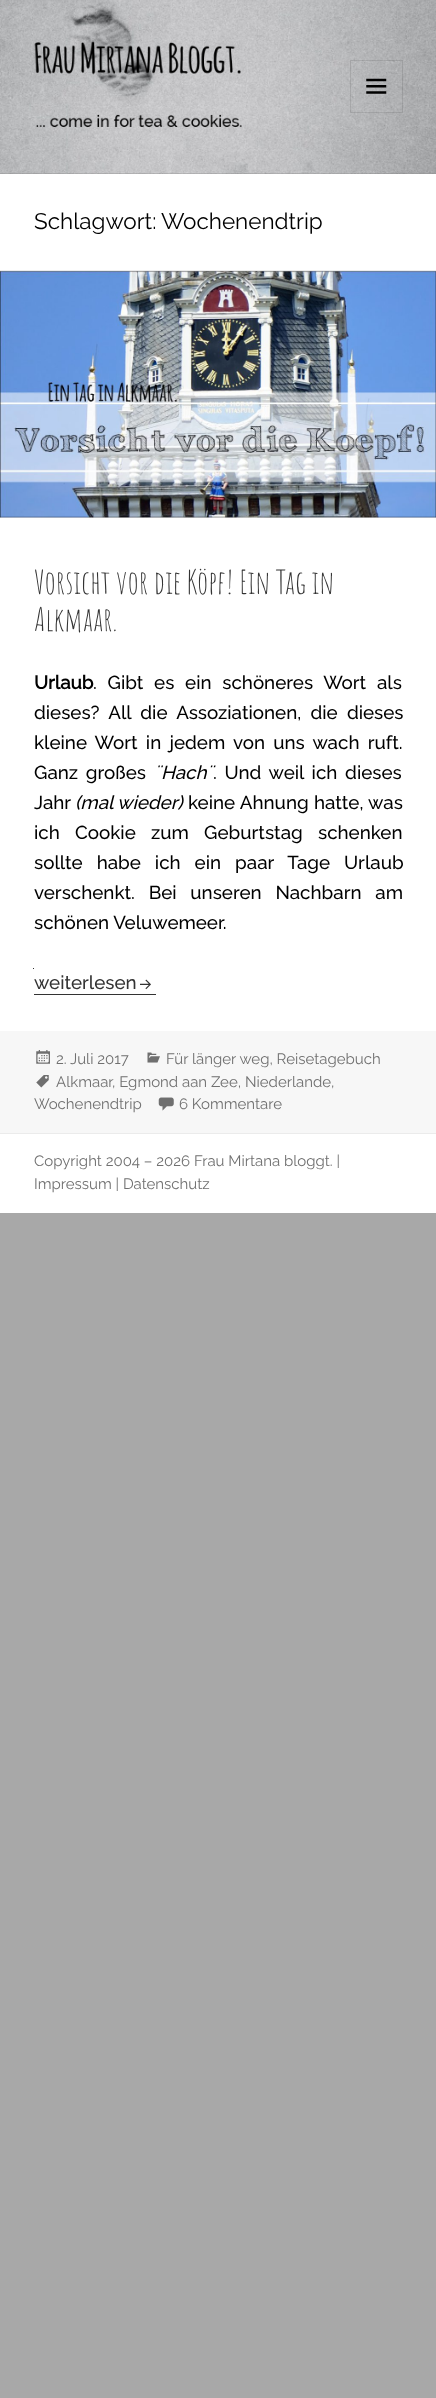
async function draw(canvas) {
  canvas.width = 436;
  canvas.height = 2398;
  const ctx = canvas.getContext('2d');
  ctx.miterLimit = 4;
  ctx.fontKerning = 'normal';
  function label(s, x, y, font, color) {
    ctx.font = font;
    ctx.fillStyle = color;
    ctx.fillText(s, x, y);
  }
  function rect(x, y, w, h, color) {
    ctx.fillStyle = color;
    ctx.fillRect(x, y, w, h);
  }
  async function image(src, x, y, w, h) {
    const img = new Image();
    img.src = src;
    await img.decode();
    ctx.drawImage(img, x, y, w, h);
  }

  rect(0, 0, 436, 2398, '#a8a8a8');
  await image('assets/img1.png', 0, 0, 436, 174);
  rect(0, 173, 436, 1, '#3333331a');
  await image('assets/img2.png', 34, 41, 208, 86);
  ctx.strokeStyle = '#0000001a';
  ctx.strokeRect(350.5, 60.5, 52, 52);
  await image('assets/img3.png', 366, 78, 21, 16);
  rect(0, 174, 436, 96, '#fff');
  rect(0, 270, 436, 1, '#ebebeb');
  label('Schlagwort:', 34, 229, '100 22.5px Raleway', '#000');
  label('Wochenendtrip', 161, 229, '100 22.5px Raleway', '#000');
  rect(0, 271, 436, 760, '#fff');
  await image('assets/img4.png', 0, 271, 436, 247);
  label('Vorsicht vor die Köpf! Ein Tag in', 34, 594, '32.5px Amatic SC', '#333');
  label('Alkmaar.', 34, 631, '32.5px Amatic SC', '#333');
  label('Urlaub', 34, 689, 'bold 18.75px Raleway', '#000');
  ctx.wordSpacing = '6px';
  label('. Gibt es ein schöneres Wort als', 93, 689, '100 18.75px "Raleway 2"', '#000');
  ctx.wordSpacing = '4.5px';
  label('dieses? All die Assoziationen, die dieses', 34, 719, '100 18.75px "Raleway 2"', '#000');
  ctx.wordSpacing = '3.5px';
  label('kleine Wort in jedem von uns wach ruft.', 34, 749, '100 18.75px "Raleway 2"', '#000');
  ctx.wordSpacing = '3px';
  label('Ganz großes', 34, 779, '100 18.75px "Raleway 2"', '#000');
  ctx.wordSpacing = '0px';
  label('¨Hach¨', 154, 779, 'italic 100 18.75px Raleway', '#000');
  ctx.wordSpacing = '3px';
  label('. Und weil ich dieses', 213, 779, '100 18.75px "Raleway 2"', '#000');
  ctx.wordSpacing = '0px';
  label('Jahr', 34, 809, '100 18.75px "Raleway 2"', '#000');
  label('(mal wieder)', 75, 809, 'italic 100 18.75px Raleway', '#000');
  ctx.wordSpacing = '0.5px';
  label('keine Ahnung hatte, was', 188, 809, '100 18.75px "Raleway 2"', '#000');
  ctx.wordSpacing = '10.5px';
  label('ich Cookie zum Geburtstag schenken', 34, 839, '100 18.75px "Raleway 2"', '#000');
  ctx.wordSpacing = '9.25px';
  label('sollte habe ich ein paar Tage Urlaub', 34, 869, '100 18.75px "Raleway 2"', '#000');
  ctx.wordSpacing = '9px';
  label('verschenkt. Bei unseren Nachbarn am', 34, 899, '100 18.75px "Raleway 2"', '#000');
  ctx.wordSpacing = '0px';
  label('schönen Veluwemeer.', 34, 929, '100 18.75px "Raleway 2"', '#000');
  rect(33, 968, 1, 1, '#333');
  rect(34, 994, 122, 1, '#333');
  label('weiterlesen', 34, 989, '100 18.75px "Raleway 2"', '#333');
  await image('assets/img5.png', 140, 979, 11, 11);
  rect(0, 1031, 436, 102, '#f7f7f7');
  await image('assets/img6.png', 36, 1050, 14, 14);
  label('2. Juli 2017', 56, 1064, '100 15px Raleway', '#707070');
  await image('assets/img7.png', 147, 1052, 13, 11);
  label('Für länger weg, Reisetagebuch', 166, 1064, '100 15px Raleway', '#707070');
  await image('assets/img8.png', 36, 1075, 13, 13);
  label('Alkmaar', 56, 1087, '100 15px Raleway', '#707070');
  label(', Egmond aan Zee, Niederlande,', 112, 1087, '100 15px Raleway', '#707070');
  label('Wochenendtrip', 34, 1109, '100 15px Raleway', '#707070');
  await image('assets/img9.png', 158, 1097, 16, 14);
  label('6 Kommentare', 179, 1109, '100 15px Raleway', '#707070');
  rect(0, 1134, 436, 79, '#fff');
  rect(0, 1133, 436, 1, '#ebebeb');
  label('Copyright 2004 – 2026 Frau Mirtana bloggt. |', 34, 1166, '100 15px Raleway', '#707070');
  label('Impressum | Datenschutz', 34, 1189, '100 15px Raleway', '#707070');
}

draw(document.querySelector('canvas'));
